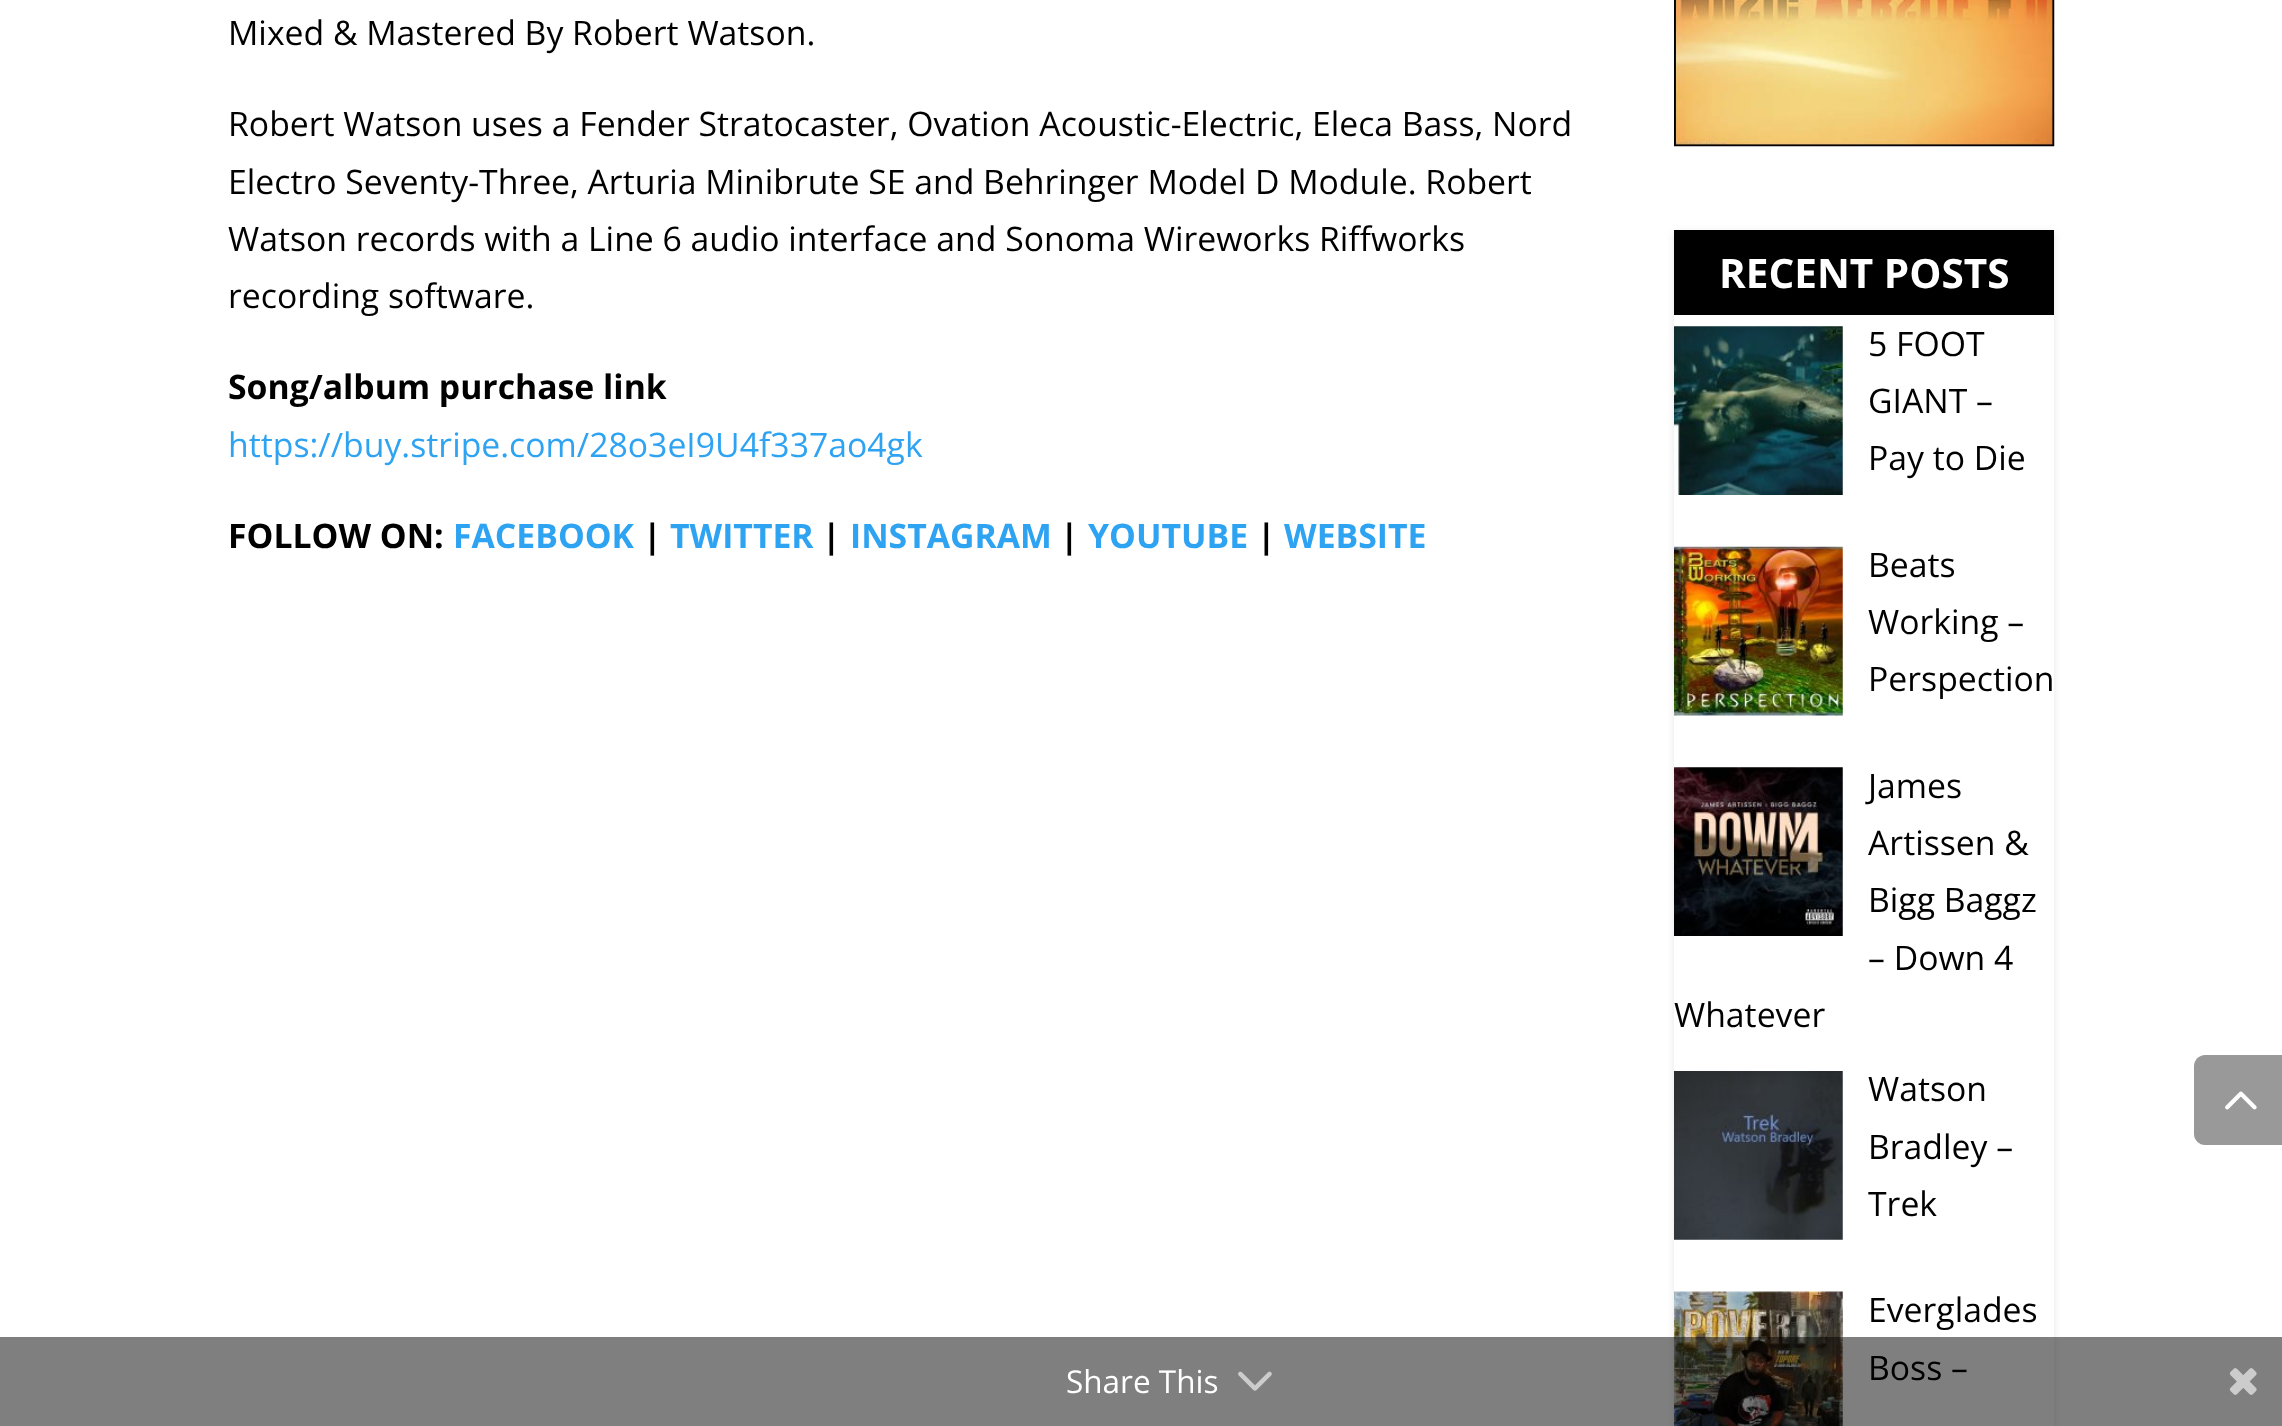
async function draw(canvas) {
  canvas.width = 2282;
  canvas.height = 1426;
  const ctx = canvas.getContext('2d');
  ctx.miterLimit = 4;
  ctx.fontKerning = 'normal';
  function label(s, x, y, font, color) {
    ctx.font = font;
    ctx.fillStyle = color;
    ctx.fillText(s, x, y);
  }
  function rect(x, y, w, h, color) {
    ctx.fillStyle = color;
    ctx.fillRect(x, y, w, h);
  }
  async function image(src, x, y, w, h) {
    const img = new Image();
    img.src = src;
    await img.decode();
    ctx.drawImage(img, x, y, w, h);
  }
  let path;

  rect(0, 0, 2282, 1426, '#fff');
  label('Mixed & Mastered By Robert Watson.', 228, 45, '33.75px Open Sans', '#000');
  label('Robert Watson uses a Fender Stratocaster, Ovation Acoustic-Electric, Eleca Bass, Nord', 228, 136, '33.75px Open Sans', '#000');
  label('Electro Seventy-Three, Arturia Minibrute SE and Behringer Model D Module. Robert', 228, 194, '33.75px Open Sans', '#000');
  label('Watson records with a Line 6 audio interface and Sonoma Wireworks Riffworks', 228, 251, '33.75px Open Sans', '#000');
  label('recording software.', 228, 308, '33.75px Open Sans', '#000');
  label('Song/album purchase link', 228, 399, 'bold 33.75px Open Sans', '#000');
  label('https://buy.stripe.com/28o3eI9U4f337ao4gk', 228, 457, '33.75px Open Sans', '#2ea3f2');
  label('FOLLOW ON:', 228, 548, 'bold 33.75px Open Sans', '#000');
  label('FACEBOOK', 453, 548, 'bold 33.75px Open Sans', '#2ea3f2');
  label('|', 643, 548, 'bold 33.75px Open Sans', '#000');
  label('TWITTER', 670, 548, 'bold 33.75px Open Sans', '#2ea3f2');
  label('|', 822, 548, 'bold 33.75px Open Sans', '#000');
  label('INSTAGRAM', 850, 548, 'bold 33.75px Open Sans', '#2ea3f2');
  label('|', 1060, 548, 'bold 33.75px Open Sans', '#000');
  label('YOUTUBE', 1088, 548, 'bold 33.75px Open Sans', '#2ea3f2');
  label('|', 1257, 548, 'bold 33.75px Open Sans', '#000');
  label('WEBSITE', 1284, 548, 'bold 33.75px Open Sans', '#2ea3f2');
  await image('assets/img1.png', 1674, 0, 381, 147);
  ctx.fillStyle = '#0000001a';
  ctx.filter = 'blur(3.5px)';
  ctx.beginPath();
  ctx.rect(1674, 232, 380, 85);
  ctx.fill();
  ctx.filter = 'none';
  rect(1674, 230, 380, 85, '#000');
  label('RECENT POSTS', 1719, 288, 'bold 40.5px Open Sans', '#fff');
  ctx.fillStyle = '#0000001a';
  ctx.filter = 'blur(3.5px)';
  ctx.beginPath();
  ctx.rect(1674, 317, 380, 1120);
  ctx.fill();
  ctx.filter = 'none';
  rect(1674, 315, 380, 1111, '#fff');
  await image('assets/img2.png', 1674, 326, 169, 169);
  label('5 FOOT', 1868, 356, '33.75px Open Sans', '#000');
  label('GIANT –', 1868, 413, '33.75px Open Sans', '#000');
  label('Pay to Die', 1868, 470, '33.75px Open Sans', '#000');
  await image('assets/img3.png', 1674, 546, 169, 170);
  label('Beats', 1868, 577, '33.75px Open Sans', '#000');
  label('Working –', 1868, 634, '33.75px Open Sans', '#000');
  label('Perspection', 1868, 691, '33.75px Open Sans', '#000');
  await image('assets/img4.png', 1674, 767, 169, 169);
  label('James', 1868, 798, '33.75px Open Sans', '#000');
  label('Artissen &', 1868, 855, '33.75px Open Sans', '#000');
  label('Bigg Baggz', 1868, 912, '33.75px Open Sans', '#000');
  label('– Down 4', 1868, 970, '33.75px Open Sans', '#000');
  label('Whatever', 1674, 1027, '33.75px Open Sans', '#000');
  await image('assets/img5.png', 1674, 1071, 169, 169);
  label('Watson', 1868, 1101, '33.75px Open Sans', '#000');
  label('Bradley –', 1868, 1159, '33.75px Open Sans', '#000');
  label('Trek', 1868, 1216, '33.75px Open Sans', '#000');
  await image('assets/img6.png', 1674, 1291, 169, 135);
  label('Everglades', 1868, 1322, '33.75px Open Sans', '#000');
  label('Boss –', 1868, 1380, '33.75px Open Sans', '#000');
  ctx.fillStyle = '#999';
  path = new Path2D('M2205 1055H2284V1145H2205C2199 1145 2194 1140 2194 1134V1066C2194 1060 2199 1055 2205 1055Z');
  ctx.fill(path);
  await image('assets/img7.png', 2225, 1091, 32, 19);
  rect(0, 1337, 2282, 89, '#00000080');
  label('Share This', 1066, 1393, '31.5px Open Sans', '#fff');
  await image('assets/img8.png', 1238, 1371, 34, 20);
  await image('assets/img9.png', 2229, 1368, 28, 27);
}

draw(document.querySelector('canvas'));
